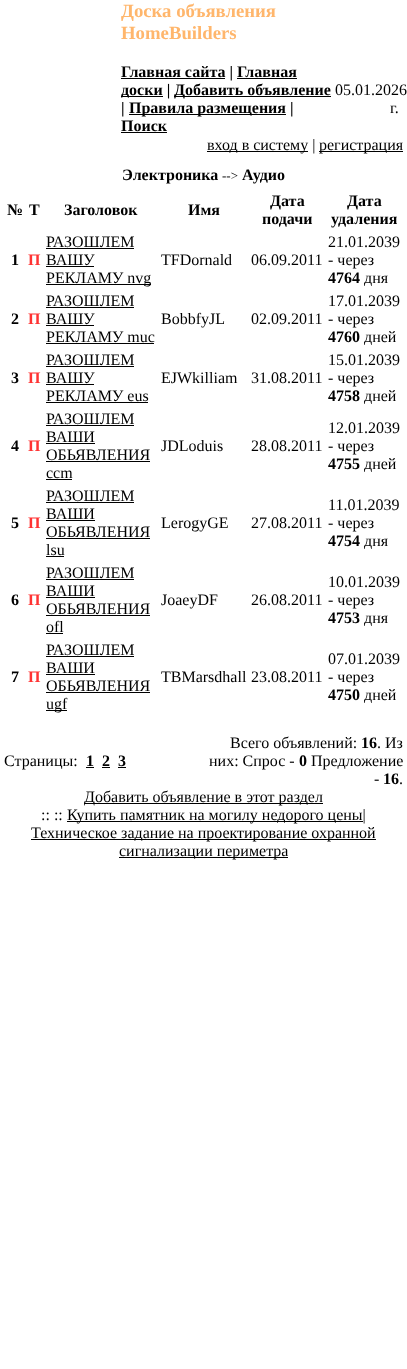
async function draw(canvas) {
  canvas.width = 407;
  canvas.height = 1369;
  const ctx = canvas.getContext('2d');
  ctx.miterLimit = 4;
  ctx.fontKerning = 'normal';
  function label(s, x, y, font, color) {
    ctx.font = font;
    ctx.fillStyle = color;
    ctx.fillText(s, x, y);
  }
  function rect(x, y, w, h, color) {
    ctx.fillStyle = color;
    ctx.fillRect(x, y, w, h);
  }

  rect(0, 0, 407, 1369, '#fff');
  label('Доска объявления', 121, 17, 'bold 18.75px Liberation Serif', '#ffb66c');
  label('HomeBuilders', 121, 39, 'bold 18.75px Liberation Serif', '#ffb66c');
  rect(121, 78, 104, 1, '#000');
  label('Главная сайта | Главная', 121, 77, 'bold 16px Liberation Serif', '#000');
  rect(237, 78, 60, 1, '#000');
  rect(121, 96, 42, 1, '#000');
  label('доски |', 121, 95, 'bold 16px Liberation Serif', '#000');
  rect(174, 96, 157, 1, '#000');
  label('Добавить объявление', 174, 95, 'bold 16px Liberation Serif', '#000');
  label('|', 121, 113, 'bold 16px Liberation Serif', '#000');
  rect(129, 114, 157, 1, '#000');
  label('Правила размещения |', 129, 113, 'bold 16px Liberation Serif', '#000');
  label('Поиск', 121, 131, 'bold 16px Liberation Serif', '#000');
  rect(121, 132, 46, 1, '#000');
  label('05.01.2026', 335, 95, '16px Liberation Serif', '#000');
  label('г.', 390, 113, '16px Liberation Serif', '#000');
  rect(207, 151, 101, 1, '#000');
  label('вход в систему |', 207, 150, '16px Liberation Serif', '#000');
  rect(319, 151, 84, 1, '#000');
  label('регистрация', 319, 150, '16px Liberation Serif', '#000');
  label('Электроника', 122, 180, 'bold 16px Liberation Serif', '#000');
  label('-->', 222, 180, '13px Liberation Serif', '#000');
  label('Аудио', 242, 180, 'bold 16px Liberation Serif', '#000');
  label('№', 7, 215, 'bold 16px Liberation Serif', '#000');
  label('Т', 29, 215, 'bold 16px Liberation Serif', '#000');
  label('Заголовок', 64, 215, 'bold 16px Liberation Serif', '#000');
  label('Имя', 188, 215, 'bold 16px Liberation Serif', '#000');
  label('Дата', 270, 206, 'bold 16px Liberation Serif', '#000');
  label('подачи', 262, 224, 'bold 16px Liberation Serif', '#000');
  label('Дата', 347, 206, 'bold 16px Liberation Serif', '#000');
  label('удаления', 331, 224, 'bold 16px Liberation Serif', '#000');
  label('1', 11, 265, 'bold 16px Liberation Serif', '#000');
  label('П', 28, 265, 'bold 16px Liberation Serif', '#f33');
  label('РАЗОШЛЕМ', 46, 247, '16px Liberation Serif', '#000');
  rect(46, 248, 88, 1, '#000');
  label('ВАШУ', 46, 265, '16px Liberation Serif', '#000');
  rect(46, 266, 48, 1, '#000');
  rect(46, 284, 105, 1, '#000');
  label('РЕКЛАМУ nvg', 46, 283, '16px Liberation Serif', '#000');
  label('TFDornald', 161, 265, '16px Liberation Serif', '#000');
  label('06.09.2011', 251, 265, '16px Liberation Serif', '#000');
  label('21.01.2039', 328, 247, '16px Liberation Serif', '#000');
  label('- через', 328, 265, '16px Liberation Serif', '#000');
  label('4764', 328, 283, 'bold 16px Liberation Serif', '#000');
  label('дня', 364, 283, '16px Liberation Serif', '#000');
  label('2', 11, 324, 'bold 16px Liberation Serif', '#000');
  label('П', 28, 324, 'bold 16px Liberation Serif', '#f33');
  label('РАЗОШЛЕМ', 46, 306, '16px Liberation Serif', '#000');
  rect(46, 307, 88, 1, '#000');
  label('ВАШУ', 46, 324, '16px Liberation Serif', '#000');
  rect(46, 325, 48, 1, '#000');
  label('РЕКЛАМУ muc', 46, 342, '16px Liberation Serif', '#000');
  rect(46, 343, 108, 1, '#000');
  label('BobbfyJL', 161, 324, '16px Liberation Serif', '#000');
  label('02.09.2011', 251, 324, '16px Liberation Serif', '#000');
  label('17.01.2039', 328, 306, '16px Liberation Serif', '#000');
  label('- через', 328, 324, '16px Liberation Serif', '#000');
  label('4760', 328, 342, 'bold 16px Liberation Serif', '#000');
  label('дней', 364, 342, '16px Liberation Serif', '#000');
  label('3', 11, 383, 'bold 16px Liberation Serif', '#000');
  label('П', 28, 383, 'bold 16px Liberation Serif', '#f33');
  label('РАЗОШЛЕМ', 46, 365, '16px Liberation Serif', '#000');
  rect(46, 366, 88, 1, '#000');
  label('ВАШУ', 46, 383, '16px Liberation Serif', '#000');
  rect(46, 384, 48, 1, '#000');
  label('РЕКЛАМУ eus', 46, 401, '16px Liberation Serif', '#000');
  rect(46, 402, 102, 1, '#000');
  label('EJWkilliam', 161, 383, '16px Liberation Serif', '#000');
  label('31.08.2011', 251, 383, '16px Liberation Serif', '#000');
  label('15.01.2039', 328, 365, '16px Liberation Serif', '#000');
  label('- через', 328, 383, '16px Liberation Serif', '#000');
  label('4758', 328, 401, 'bold 16px Liberation Serif', '#000');
  label('дней', 364, 401, '16px Liberation Serif', '#000');
  label('4', 11, 451, 'bold 16px Liberation Serif', '#000');
  label('П', 28, 451, 'bold 16px Liberation Serif', '#f33');
  label('РАЗОШЛЕМ', 46, 424, '16px Liberation Serif', '#000');
  rect(46, 425, 88, 1, '#000');
  label('ВАШИ', 46, 442, '16px Liberation Serif', '#000');
  rect(46, 443, 49, 1, '#000');
  label('ОБЬЯВЛЕНИЯ', 46, 460, '16px Liberation Serif', '#000');
  rect(46, 461, 104, 1, '#000');
  label('ccm', 46, 478, '16px Liberation Serif', '#000');
  rect(46, 479, 26, 1, '#000');
  label('JDLoduis', 161, 451, '16px Liberation Serif', '#000');
  label('28.08.2011', 251, 451, '16px Liberation Serif', '#000');
  label('12.01.2039', 328, 433, '16px Liberation Serif', '#000');
  label('- через', 328, 451, '16px Liberation Serif', '#000');
  label('4755', 328, 469, 'bold 16px Liberation Serif', '#000');
  label('дней', 364, 469, '16px Liberation Serif', '#000');
  label('5', 11, 528, 'bold 16px Liberation Serif', '#000');
  label('П', 28, 528, 'bold 16px Liberation Serif', '#f33');
  label('РАЗОШЛЕМ', 46, 501, '16px Liberation Serif', '#000');
  rect(46, 502, 88, 1, '#000');
  label('ВАШИ', 46, 519, '16px Liberation Serif', '#000');
  rect(46, 520, 49, 1, '#000');
  label('ОБЬЯВЛЕНИЯ', 46, 537, '16px Liberation Serif', '#000');
  rect(46, 538, 104, 1, '#000');
  label('lsu', 46, 555, '16px Liberation Serif', '#000');
  rect(46, 556, 18, 1, '#000');
  label('LerogyGE', 161, 528, '16px Liberation Serif', '#000');
  label('27.08.2011', 251, 528, '16px Liberation Serif', '#000');
  label('11.01.2039', 328, 510, '16px Liberation Serif', '#000');
  label('- через', 328, 528, '16px Liberation Serif', '#000');
  label('4754', 328, 546, 'bold 16px Liberation Serif', '#000');
  label('дня', 364, 546, '16px Liberation Serif', '#000');
  label('6', 11, 605, 'bold 16px Liberation Serif', '#000');
  label('П', 28, 605, 'bold 16px Liberation Serif', '#f33');
  label('РАЗОШЛЕМ', 46, 578, '16px Liberation Serif', '#000');
  rect(46, 579, 88, 1, '#000');
  label('ВАШИ', 46, 596, '16px Liberation Serif', '#000');
  rect(46, 597, 49, 1, '#000');
  label('ОБЬЯВЛЕНИЯ', 46, 614, '16px Liberation Serif', '#000');
  rect(46, 615, 104, 1, '#000');
  label('ofl', 46, 632, '16px Liberation Serif', '#000');
  rect(46, 633, 17, 1, '#000');
  label('JoaeyDF', 161, 605, '16px Liberation Serif', '#000');
  label('26.08.2011', 251, 605, '16px Liberation Serif', '#000');
  label('10.01.2039', 328, 587, '16px Liberation Serif', '#000');
  label('- через', 328, 605, '16px Liberation Serif', '#000');
  label('4753', 328, 623, 'bold 16px Liberation Serif', '#000');
  label('дня', 364, 623, '16px Liberation Serif', '#000');
  label('7', 11, 682, 'bold 16px Liberation Serif', '#000');
  label('П', 28, 682, 'bold 16px Liberation Serif', '#f33');
  label('РАЗОШЛЕМ', 46, 655, '16px Liberation Serif', '#000');
  rect(46, 656, 88, 1, '#000');
  label('ВАШИ', 46, 673, '16px Liberation Serif', '#000');
  rect(46, 674, 49, 1, '#000');
  label('ОБЬЯВЛЕНИЯ', 46, 691, '16px Liberation Serif', '#000');
  rect(46, 692, 104, 1, '#000');
  rect(46, 710, 21, 1, '#000');
  label('ugf', 46, 709, '16px Liberation Serif', '#000');
  label('TBMarsdhall', 161, 682, '16px Liberation Serif', '#000');
  label('23.08.2011', 251, 682, '16px Liberation Serif', '#000');
  label('07.01.2039', 328, 664, '16px Liberation Serif', '#000');
  label('- через', 328, 682, '16px Liberation Serif', '#000');
  label('4750', 328, 700, 'bold 16px Liberation Serif', '#000');
  label('дней', 364, 700, '16px Liberation Serif', '#000');
  label('Страницы:', 4, 766, '16px Liberation Serif', '#000');
  label('1', 86, 766, 'bold 16px Liberation Serif', '#000');
  rect(86, 767, 8, 1, '#000');
  label('2', 102, 766, 'bold 16px Liberation Serif', '#000');
  rect(102, 767, 8, 1, '#000');
  label('3', 118, 766, 'bold 16px Liberation Serif', '#000');
  rect(118, 767, 8, 1, '#000');
  label('Всего объявлений:', 230, 748, '16px Liberation Serif', '#000');
  label('16', 361, 748, 'bold 16px Liberation Serif', '#000');
  label('. Из', 377, 748, '16px Liberation Serif', '#000');
  label('них: Спрос -', 209, 766, '16px Liberation Serif', '#000');
  label('0', 299, 766, 'bold 16px Liberation Serif', '#000');
  label('Предложение', 311, 766, '16px Liberation Serif', '#000');
  label('-', 374, 784, '16px Liberation Serif', '#000');
  label('16', 383, 784, 'bold 16px Liberation Serif', '#000');
  label('.', 399, 784, '16px Liberation Serif', '#000');
  rect(84, 803, 239, 1, '#000');
  label('Добавить объявление в этот раздел', 84, 802, '16px Liberation Serif', '#000');
  label(':: ::', 41, 820, '16px Liberation Serif', '#000');
  rect(67, 821, 296, 1, '#000');
  label('Купить памятник на могилу недорого цены|', 67, 820, '16px Liberation Serif', '#000');
  rect(31, 839, 345, 1, '#000');
  label('Техническое задание на проектирование охранной', 31, 838, '16px Liberation Serif', '#000');
  rect(119, 857, 169, 1, '#000');
  label('сигнализации периметра', 119, 856, '16px Liberation Serif', '#000');
}

draw(document.querySelector('canvas'));
